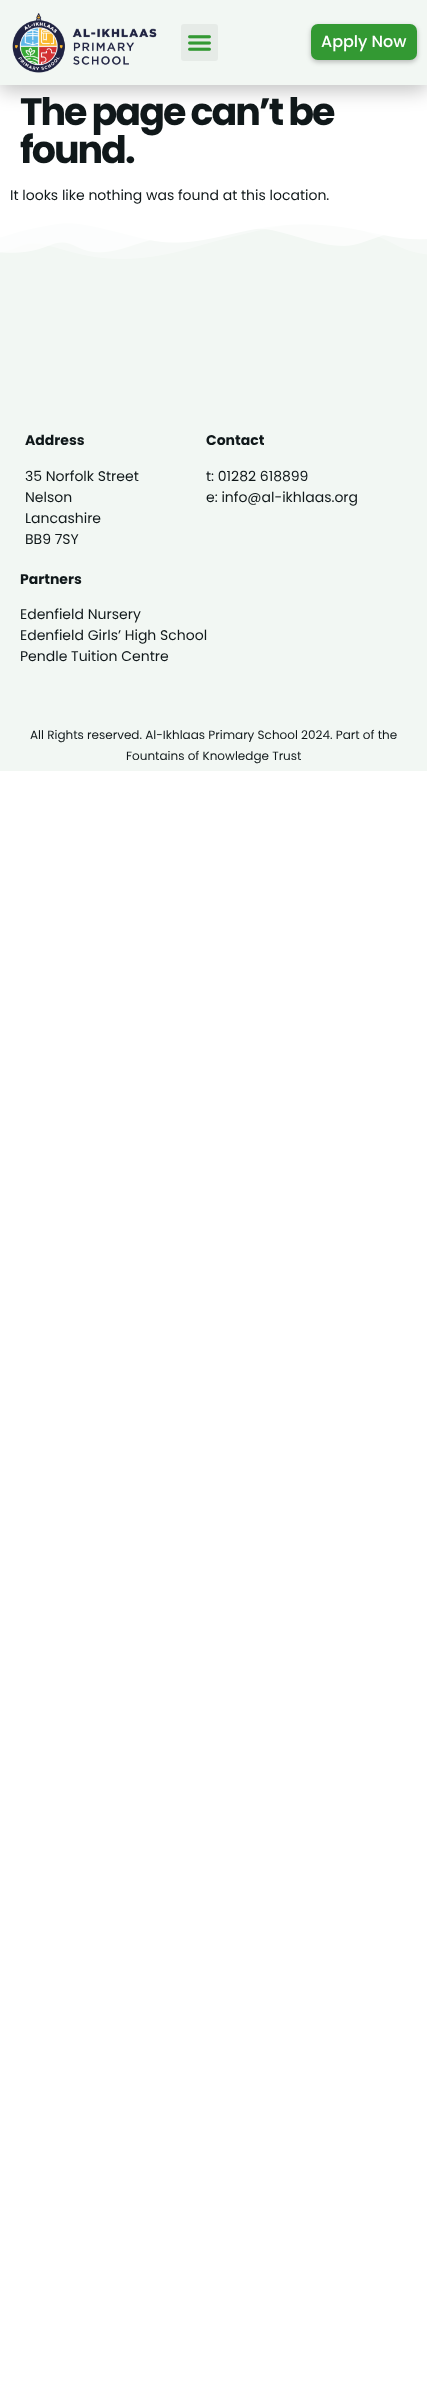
async function draw(canvas) {
  canvas.width = 427;
  canvas.height = 2388;
  const ctx = canvas.getContext('2d');
  ctx.miterLimit = 4;
  ctx.fontKerning = 'normal';
  function label(s, x, y, font, color) {
    ctx.font = font;
    ctx.fillStyle = color;
    ctx.fillText(s, x, y);
  }
  function rect(x, y, w, h, color) {
    ctx.fillStyle = color;
    ctx.fillRect(x, y, w, h);
  }
  function roundedRect(x, y, w, h, r, color) {
    ctx.fillStyle = color;
    ctx.beginPath();
    ctx.roundRect(x, y, w, h, r);
    ctx.fill();
  }
  async function image(src, x, y, w, h) {
    const img = new Image();
    img.src = src;
    await img.decode();
    ctx.drawImage(img, x, y, w, h);
  }

  rect(0, 0, 427, 2388, '#fff');
  ctx.fillStyle = '#00000040';
  ctx.filter = 'blur(10px)';
  ctx.beginPath();
  ctx.rect(0, 5, 427, 85);
  ctx.fill();
  ctx.filter = 'none';
  rect(0, 0, 427, 85, '#f2f7f3');
  await image('assets/img1.png', 12, 13, 145, 60);
  roundedRect(181, 24, 37, 37, 3, '#e6ebe7');
  await image('assets/img2.png', 188, 35, 23, 16);
  ctx.fillStyle = '#00000040';
  ctx.filter = 'blur(2.5px)';
  ctx.beginPath();
  ctx.roundRect(311, 26, 106, 36, 7);
  ctx.fill();
  ctx.filter = 'none';
  roundedRect(311, 24, 106, 36, 7, '#393');
  label('Apply Now', 321, 47, '500 16px Poppins', '#fff');
  ctx.letterSpacing = '-2px';
  label('The page can’t be', 20, 125, 'bold 38px Poppins', '#10181a');
  label('found.', 20, 163, 'bold 38px Poppins', '#10181a');
  ctx.letterSpacing = '0px';
  label('It looks like nothing was found at this location.', 10, 200, '14px Poppins', '#10181a');
  rect(0, 223, 427, 548, '#f2f7f3');
  await image('assets/img3.png', 0, 220, 427, 39);
  label('Address', 25, 445, 'bold 14px Poppins', '#10181a');
  label('35 Norfolk Street', 25, 481, '14px Poppins', '#10181a');
  label('Nelson', 25, 502, '14px Poppins', '#10181a');
  label('Lancashire', 25, 523, '14px Poppins', '#10181a');
  label('BB9 7SY', 25, 544, '14px Poppins', '#10181a');
  label('Contact', 206, 445, 'bold 14px Poppins', '#10181a');
  label('t: 01282 618899', 206, 481, '14px Poppins', '#10181a');
  label('e: info@al-ikhlaas.org', 206, 502, '14px Poppins', '#10181a');
  label('Partners', 20, 584, 'bold 14px Poppins', '#10181a');
  label('Edenfield Nursery', 20, 619, '14px Poppins', '#10181a');
  label('Edenfield Girls’ High School', 20, 640, '14px Poppins', '#10181a');
  label('Pendle Tuition Centre', 20, 661, '14px Poppins', '#10181a');
  label('All Rights reserved. Al-Ikhlaas Primary School 2024. Part of the', 30, 739, '12px Poppins', '#10181a');
  label('Fountains of Knowledge Trust', 126, 760, '12px Poppins', '#10181a');
}

draw(document.querySelector('canvas'));
